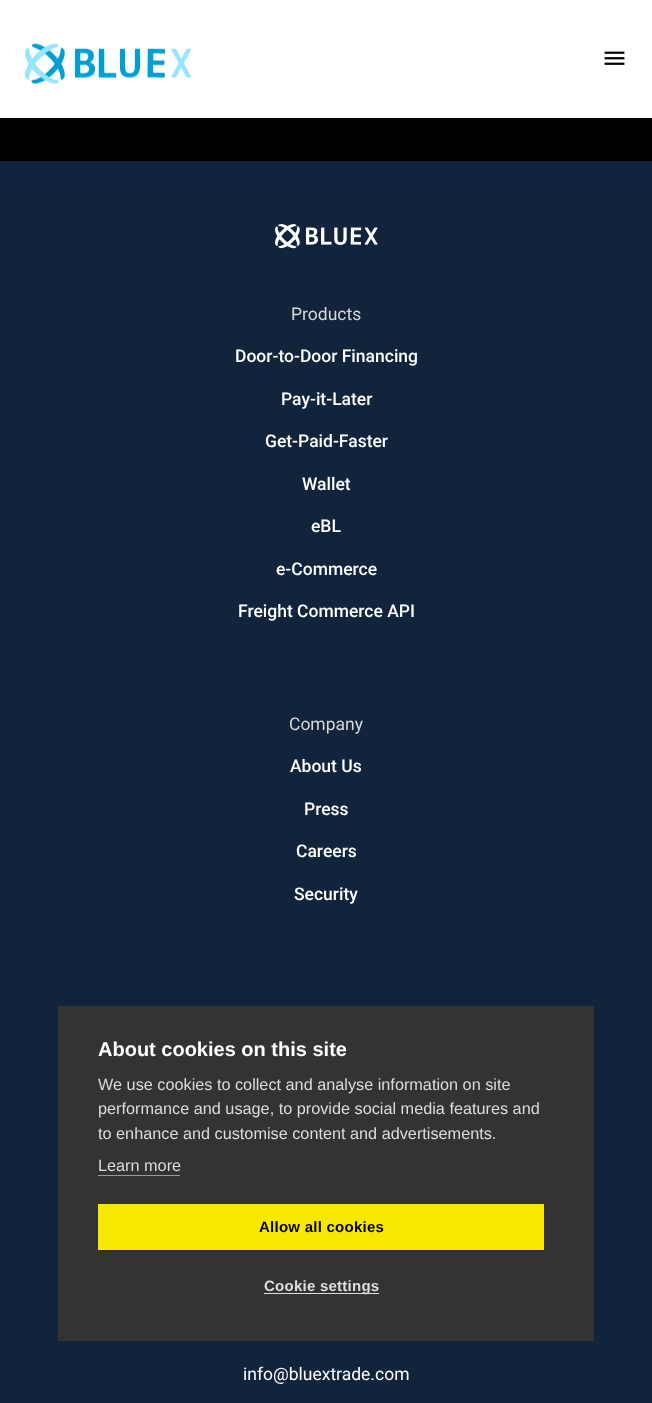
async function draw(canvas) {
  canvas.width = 652;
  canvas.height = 1403;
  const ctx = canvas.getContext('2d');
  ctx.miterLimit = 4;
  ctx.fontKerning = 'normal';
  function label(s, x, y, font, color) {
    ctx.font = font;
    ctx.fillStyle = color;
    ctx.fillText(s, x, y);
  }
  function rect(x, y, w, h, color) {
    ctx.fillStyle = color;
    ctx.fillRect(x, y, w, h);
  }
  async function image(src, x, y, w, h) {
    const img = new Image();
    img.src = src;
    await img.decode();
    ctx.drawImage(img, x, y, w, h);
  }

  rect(0, 0, 652, 1403, '#000');
  rect(0, 0, 652, 118, '#fff');
  await image('assets/img1.png', 25, 43, 166, 41);
  await image('assets/img2.png', 604, 51, 21, 14);
  rect(0, 161, 652, 1242, '#11243b');
  await image('assets/img3.png', 275, 224, 103, 25);
  label('Products', 291, 320, '17.5px Roboto', '#d7d7d7');
  label('Door-to-Door Financing', 235, 362, '500 17.5px Roboto', '#fff');
  label('Pay-it-Later', 281, 405, '500 17.5px Roboto', '#fff');
  label('Get-Paid-Faster', 265, 447, '500 17.5px Roboto', '#fff');
  label('Wallet', 302, 490, '500 17.5px Roboto', '#fff');
  label('eBL', 311, 532, '500 17.5px Roboto', '#fff');
  label('e-Commerce', 276, 575, '500 17.5px Roboto', '#fff');
  label('Freight Commerce API', 238, 617, '500 17.5px Roboto', '#fff');
  label('Company', 289, 730, '17.5px Roboto', '#d7d7d7');
  label('About Us', 290, 772, '500 17.5px Roboto', '#fff');
  label('Press', 304, 815, '500 17.5px Roboto', '#fff');
  label('Careers', 296, 857, '500 17.5px Roboto', '#fff');
  label('Security', 294, 900, '500 17.5px Roboto', '#fff');
  label('info@bluextrade.com', 243, 1380, '17.5px Roboto', '#fff');
  rect(58, 1006, 536, 335, '#333');
  label('About cookies on this site', 98, 1056, 'bold 20px Liberation Sans', '#fff');
  label('We use cookies to collect and analyse information on site', 98, 1090, '16.25px Liberation Sans', '#ddd');
  label('performance and usage, to provide social media features and', 98, 1114, '16.25px Liberation Sans', '#ddd');
  label('to enhance and customise content and advertisements.', 98, 1139, '16.25px Liberation Sans', '#ddd');
  label('Learn more', 98, 1171, '16.25px Liberation Sans', '#ddd');
  rect(98, 1175, 82, 1, '#999');
  rect(98, 1204, 446, 46, '#f7e800');
  ctx.letterSpacing = '0.25px';
  label('Allow all cookies', 259, 1232, 'bold 15px Liberation Sans', '#000');
  rect(264, 1293, 115, 1, '#ddd');
  label('Cookie settings', 264, 1291, 'bold 15px Liberation Sans', '#ddd');
}

draw(document.querySelector('canvas'));
